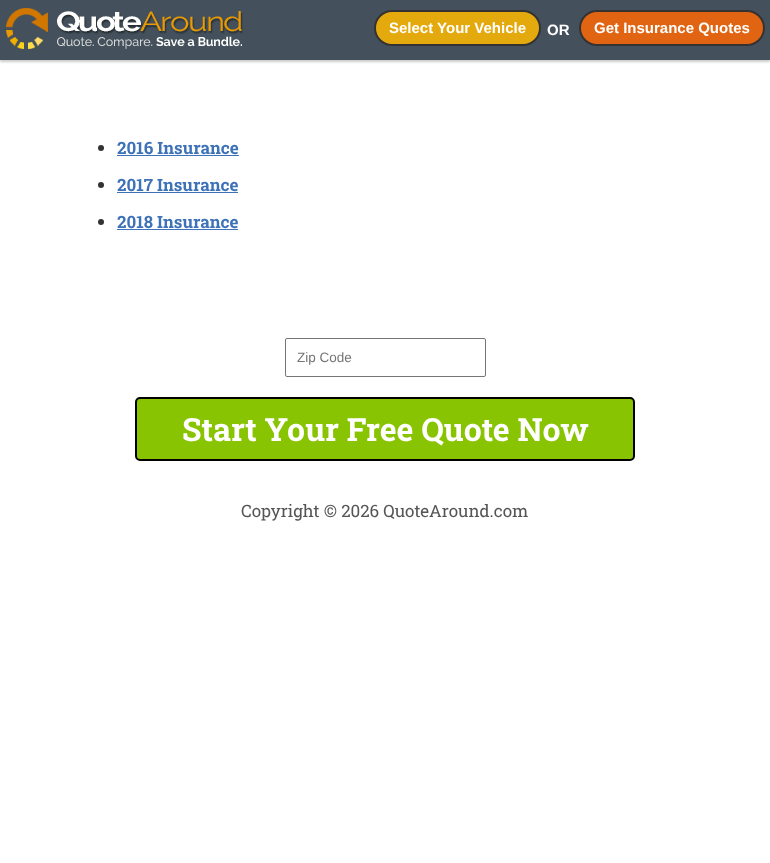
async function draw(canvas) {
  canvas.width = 770;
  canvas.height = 863;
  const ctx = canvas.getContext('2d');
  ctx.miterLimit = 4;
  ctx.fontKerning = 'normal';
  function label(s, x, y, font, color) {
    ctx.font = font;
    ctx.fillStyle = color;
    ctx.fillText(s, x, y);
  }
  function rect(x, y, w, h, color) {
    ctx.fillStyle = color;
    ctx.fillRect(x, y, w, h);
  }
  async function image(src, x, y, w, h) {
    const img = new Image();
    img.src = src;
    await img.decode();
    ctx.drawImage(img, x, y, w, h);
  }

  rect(0, 0, 770, 863, '#fff');
  ctx.fillStyle = '#00000033';
  ctx.filter = 'blur(1px)';
  ctx.beginPath();
  ctx.rect(0, 2, 770, 60);
  ctx.fill();
  ctx.filter = 'none';
  rect(0, 0, 770, 60, '#44515c');
  await image('assets/img1.png', 6, 8, 237, 41);
  ctx.fillStyle = '#e4a90d';
  ctx.beginPath();
  ctx.roundRect(375, 11, 165, 34, 17);
  ctx.fill();
  ctx.strokeStyle = '#333';
  ctx.lineWidth = 2;
  ctx.stroke();
  label('Select Your Vehicle', 389, 33, 'bold 15px Liberation Sans', '#fff');
  label('OR', 547, 35, 'bold 15px Liberation Sans', '#fff');
  ctx.fillStyle = '#e06411';
  ctx.beginPath();
  ctx.roundRect(580, 11, 184, 34, 17);
  ctx.fill();
  ctx.stroke();
  label('Get Insurance Quotes', 594, 33, 'bold 15px Liberation Sans', '#fff');
  ctx.fillStyle = '#333';
  ctx.beginPath();
  ctx.arc(101, 148, 3, 0, 2 * Math.PI);
  ctx.fill();
  label('2016 Insurance', 117, 154, 'bold 17px Roboto Slab', '#3e72b8');
  rect(117, 155, 122, 1, '#3e72b8');
  ctx.fillStyle = '#333';
  ctx.beginPath();
  ctx.arc(101, 185, 3, 0, 2 * Math.PI);
  ctx.fill();
  label('2017 Insurance', 117, 191, 'bold 17px Roboto Slab', '#3e72b8');
  rect(117, 192, 121, 1, '#3e72b8');
  ctx.fillStyle = '#333';
  ctx.beginPath();
  ctx.arc(101, 222, 3, 0, 2 * Math.PI);
  ctx.fill();
  label('2018 Insurance', 117, 228, 'bold 17px Roboto Slab', '#3e72b8');
  rect(117, 229, 121, 1, '#3e72b8');
  ctx.beginPath();
  ctx.roundRect(285.5, 338.5, 200, 38, 1.5);
  ctx.strokeStyle = '#767676';
  ctx.lineWidth = 1;
  ctx.stroke();
  label('Zip Code', 297, 362, '13.5px Liberation Sans', '#757575');
  ctx.fillStyle = '#89c403';
  ctx.beginPath();
  ctx.roundRect(136, 398, 498, 62, 4);
  ctx.fill();
  ctx.strokeStyle = '#000';
  ctx.lineWidth = 2;
  ctx.stroke();
  label('Start Your Free Quote Now', 182, 441, 'bold 32px Roboto Slab', '#fff');
  label('Copyright © 2026 QuoteAround.com', 241, 517, '17px Roboto Slab', '#555');
}

draw(document.querySelector('canvas'));
